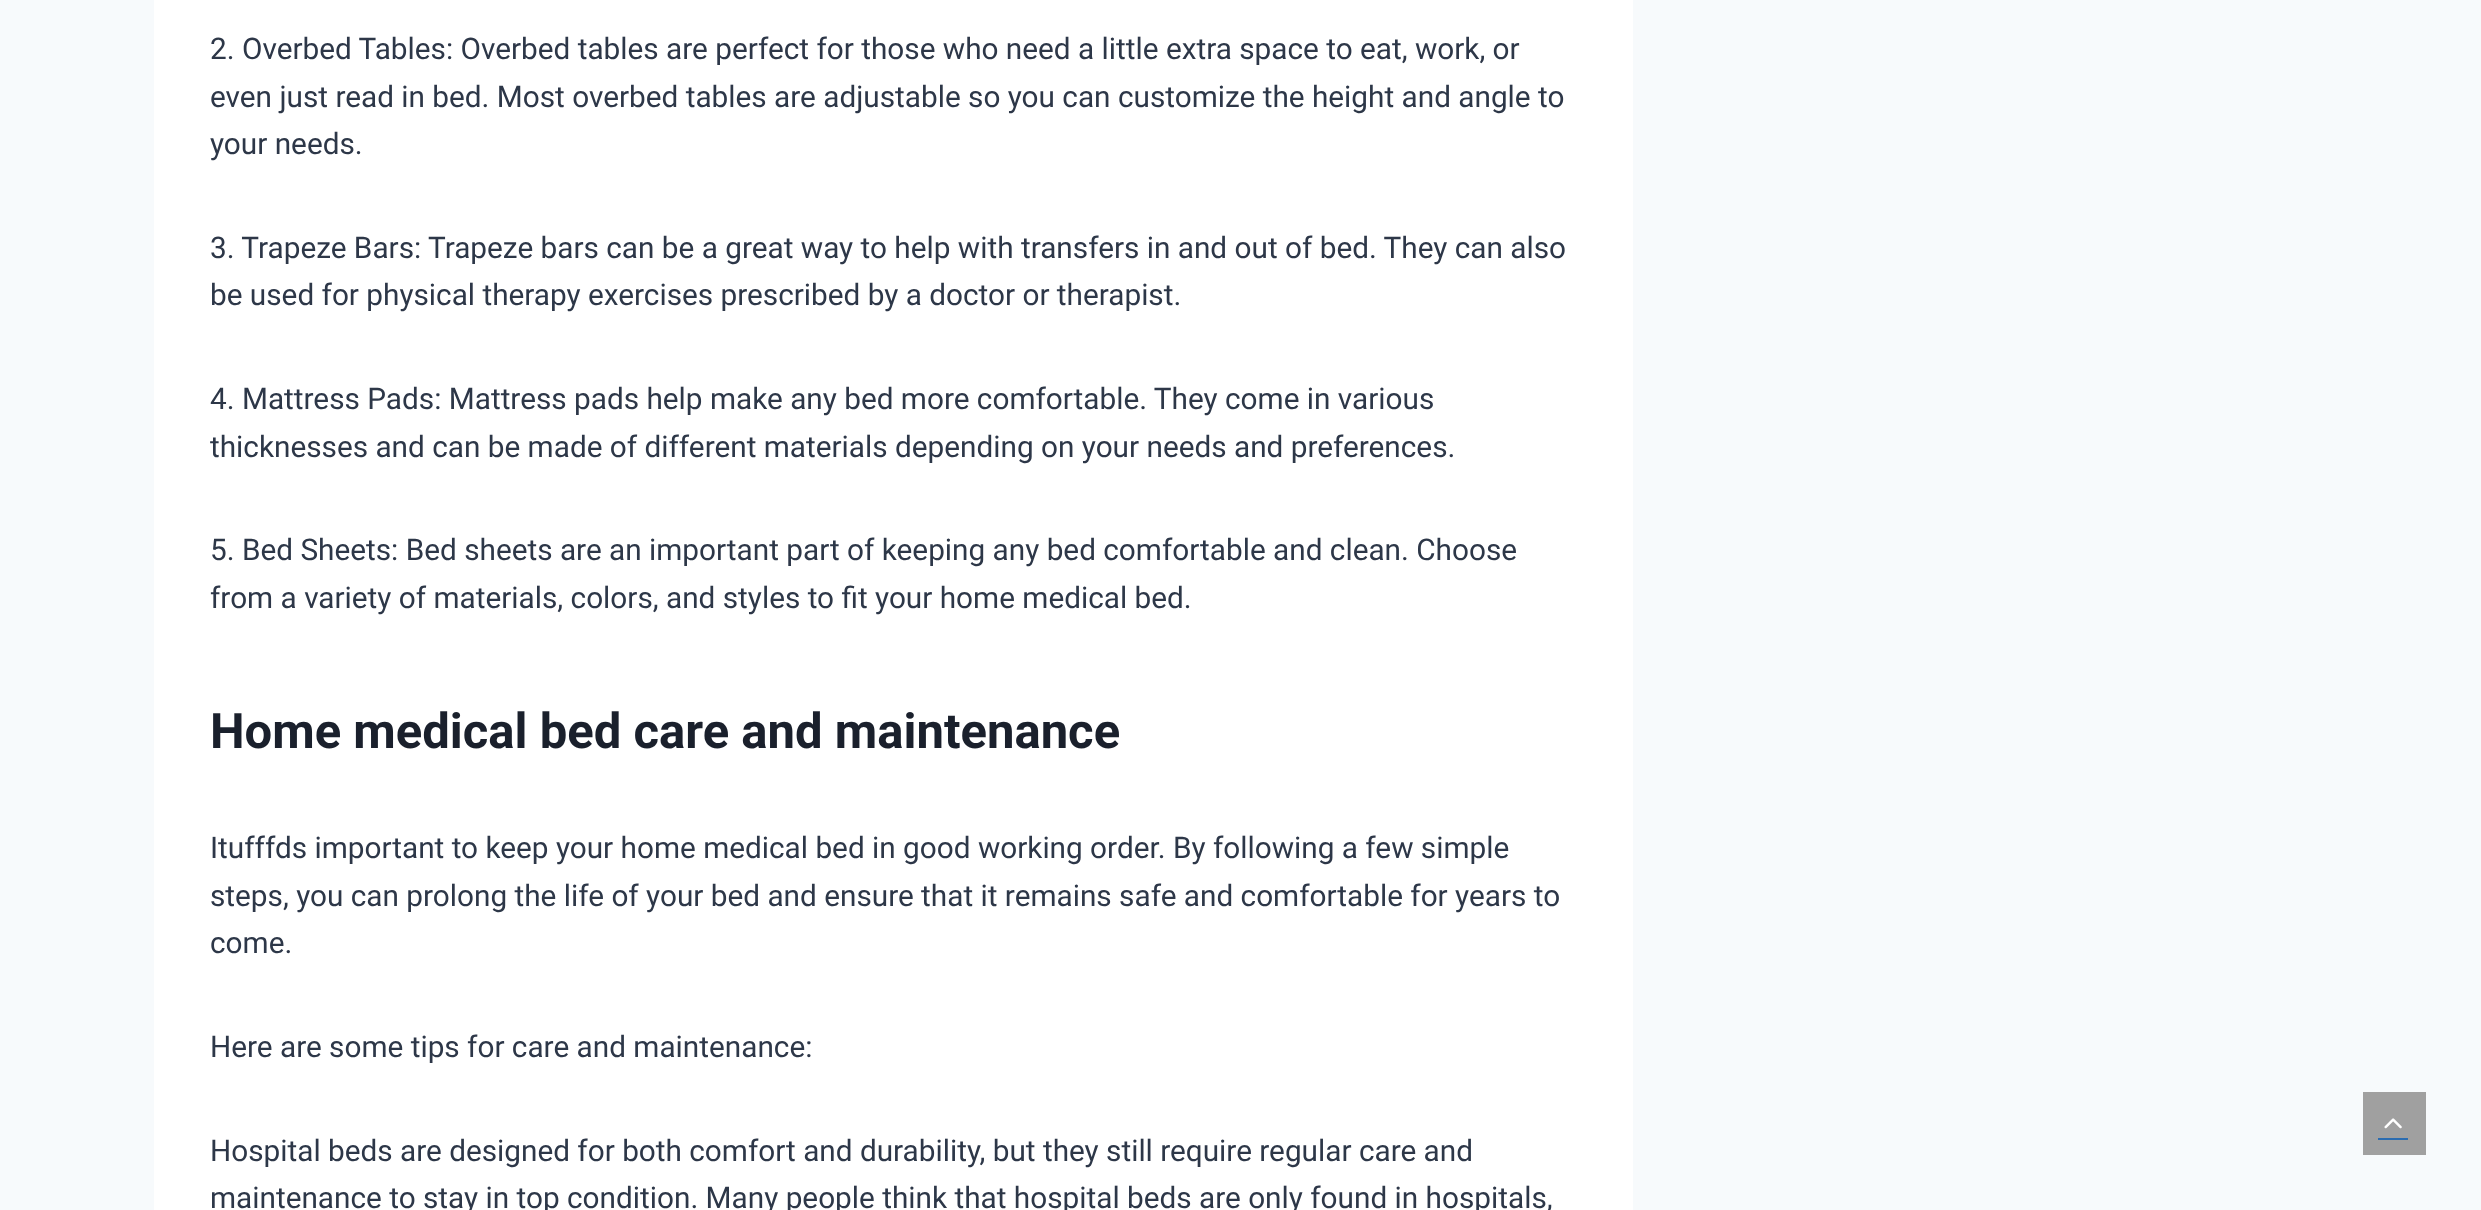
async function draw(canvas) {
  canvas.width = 2481;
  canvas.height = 1210;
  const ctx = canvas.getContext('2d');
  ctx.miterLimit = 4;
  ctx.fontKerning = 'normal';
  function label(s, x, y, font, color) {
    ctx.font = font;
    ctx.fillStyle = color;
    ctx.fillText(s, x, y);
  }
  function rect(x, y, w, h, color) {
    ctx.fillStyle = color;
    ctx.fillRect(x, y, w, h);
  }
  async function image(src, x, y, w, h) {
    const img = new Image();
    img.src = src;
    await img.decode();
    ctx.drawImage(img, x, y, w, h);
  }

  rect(0, 0, 2481, 1210, '#f7fafc');
  rect(154, 0, 1479, 1210, '#fff');
  label('2. Overbed Tables: Overbed tables are perfect for those who need a little extra space to eat, work, or', 210, 59, '29.75px Roboto', '#2d3748');
  label('even just read in bed. Most overbed tables are adjustable so you can customize the height and angle to', 210, 107, '29.75px Roboto', '#2d3748');
  label('your needs.', 210, 154, '29.75px Roboto', '#2d3748');
  label('3. Trapeze Bars: Trapeze bars can be a great way to help with transfers in and out of bed. They can also', 210, 258, '29.75px Roboto', '#2d3748');
  label('be used for physical therapy exercises prescribed by a doctor or therapist.', 210, 305, '29.75px Roboto', '#2d3748');
  label('4. Mattress Pads: Mattress pads help make any bed more comfortable. They come in various', 210, 409, '29.75px Roboto', '#2d3748');
  label('thicknesses and can be made of different materials depending on your needs and preferences.', 210, 457, '29.75px Roboto', '#2d3748');
  label('5. Bed Sheets: Bed sheets are an important part of keeping any bed comfortable and clean. Choose', 210, 560, '29.75px Roboto', '#2d3748');
  label('from a variety of materials, colors, and styles to fit your home medical bed.', 210, 608, '29.75px Roboto', '#2d3748');
  label('Home medical bed care and maintenance', 210, 748, 'bold 49px Roboto', '#1a202c');
  label('Itufffds important to keep your home medical bed in good working order. By following a few simple', 210, 858, '29.75px Roboto', '#2d3748');
  label('steps, you can prolong the life of your bed and ensure that it remains safe and comfortable for years to', 210, 906, '29.75px Roboto', '#2d3748');
  label('come.', 210, 953, '29.75px Roboto', '#2d3748');
  label('Here are some tips for care and maintenance:', 210, 1057, '29.75px Roboto', '#2d3748');
  label('Hospital beds are designed for both comfort and durability, but they still require regular care and', 210, 1161, '29.75px Roboto', '#2d3748');
  label('maintenance to stay in top condition. Many people think that hospital beds are only found in hospitals,', 210, 1208, '29.75px Roboto', '#2d3748');
  rect(2363, 1092, 63, 63, '#a0a0a0');
  await image('assets/img1.png', 2384, 1118, 18, 11);
  rect(2378, 1138, 30, 2, '#2b6cb0');
}

draw(document.querySelector('canvas'));
